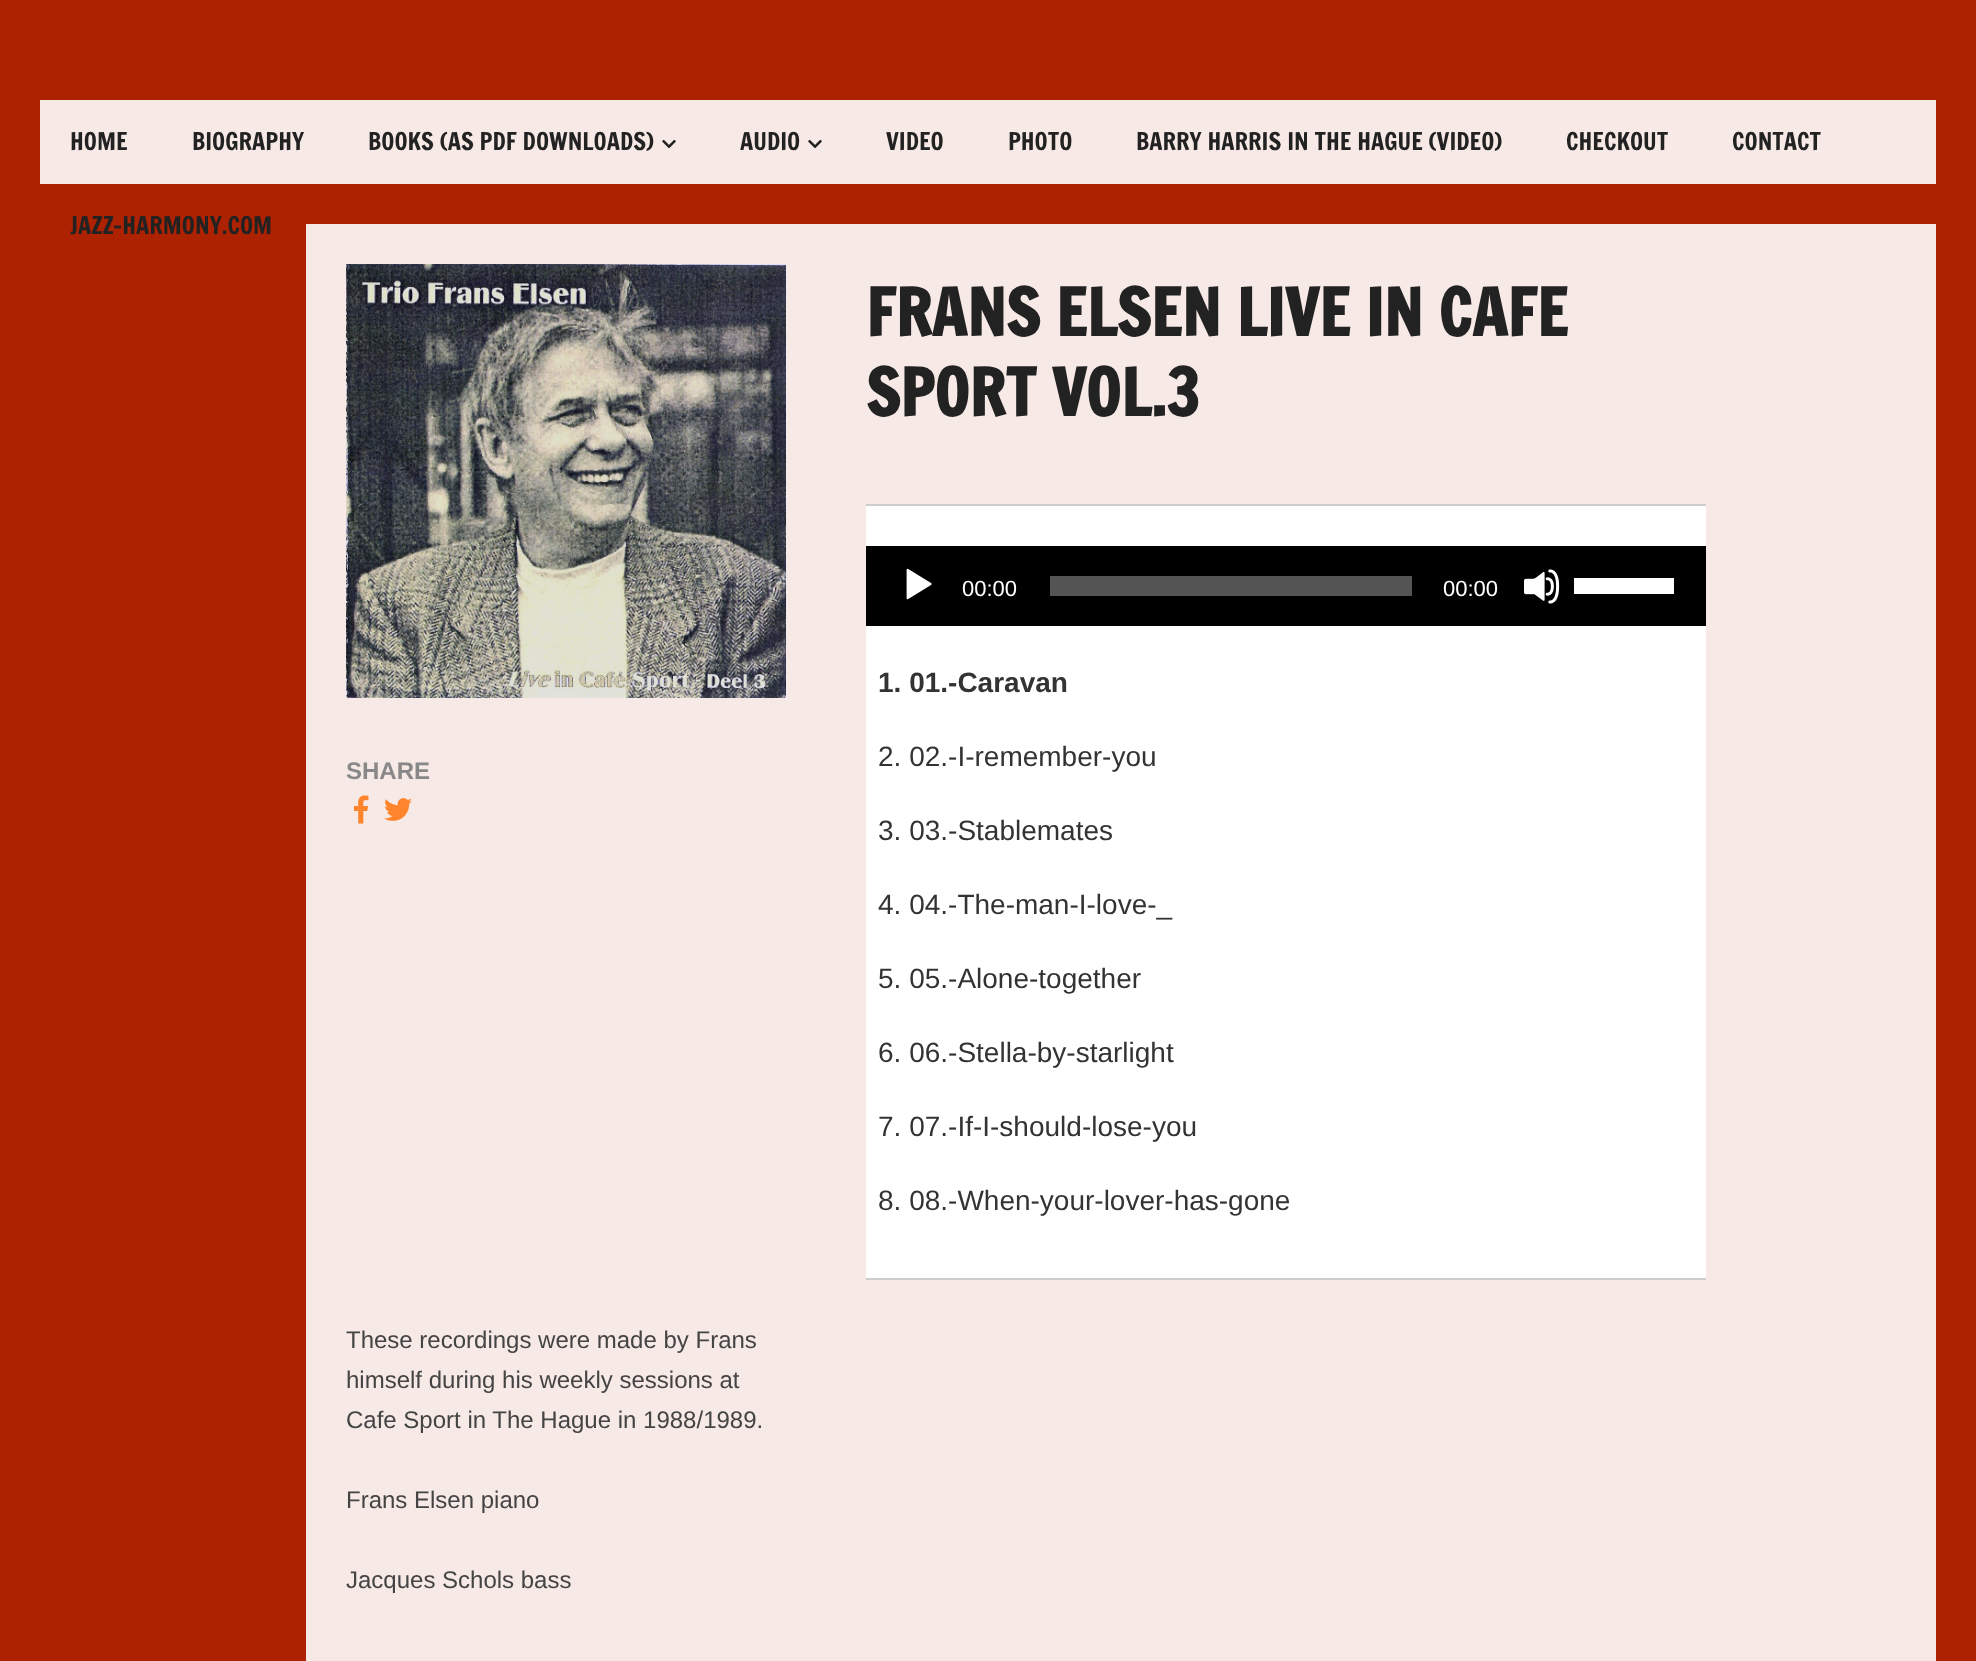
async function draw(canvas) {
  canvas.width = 1976;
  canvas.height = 1661;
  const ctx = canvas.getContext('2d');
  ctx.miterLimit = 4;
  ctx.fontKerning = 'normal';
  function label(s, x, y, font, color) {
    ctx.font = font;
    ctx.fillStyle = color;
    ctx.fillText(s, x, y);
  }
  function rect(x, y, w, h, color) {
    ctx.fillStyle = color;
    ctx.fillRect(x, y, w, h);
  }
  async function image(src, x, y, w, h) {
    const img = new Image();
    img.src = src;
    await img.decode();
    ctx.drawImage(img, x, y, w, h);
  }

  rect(0, 0, 1976, 1661, '#ad2200');
  rect(40, 100, 1896, 84, '#f7e9e6');
  label('HOME', 70, 150, '24px Francois One', '#222');
  label('BIOGRAPHY', 192, 150, '24px Francois One', '#222');
  label('BOOKS (AS PDF DOWNLOADS)', 368, 150, '24px Francois One', '#222');
  await image('assets/img1.png', 662, 139, 14, 10);
  label('AUDIO', 740, 150, '24px Francois One', '#222');
  await image('assets/img1.png', 808, 139, 14, 10);
  label('VIDEO', 886, 150, '24px Francois One', '#222');
  label('PHOTO', 1008, 150, '24px Francois One', '#222');
  label('BARRY HARRIS IN THE HAGUE (VIDEO)', 1136, 150, '24px Francois One', '#222');
  label('CHECKOUT', 1566, 150, '24px Francois One', '#222');
  label('CONTACT', 1732, 150, '24px Francois One', '#222');
  label('JAZZ-HARMONY.COM', 70, 234, '24px Francois One', '#222');
  rect(306, 224, 1630, 1437, '#f6e9e6');
  await image('assets/img2.png', 346, 264, 440, 434);
  label('SHARE', 346, 779, 'bold 24px Liberation Sans', '#888');
  await image('assets/img3.png', 354, 795, 15, 29);
  await image('assets/img4.png', 384, 798, 28, 23);
  label('FRANS ELSEN LIVE IN CAFE', 866, 336, 'bold 64px Francois One', '#222');
  label('SPORT VOL.3', 866, 416, 'bold 64px Francois One', '#222');
  rect(866, 506, 840, 772, '#fff');
  rect(866, 504, 840, 2, '#ccc');
  rect(866, 1278, 840, 2, '#ccc');
  rect(866, 546, 840, 80, '#000');
  await image('assets/img5.png', 906, 568, 26, 32);
  label('00:00', 962, 596, '22px Liberation Sans', '#fff');
  rect(1050, 576, 362, 20, '#545454');
  label('00:00', 1443, 596, '22px Liberation Sans', '#fff');
  await image('assets/img6.png', 1524, 569, 36, 35);
  rect(1574, 578, 100, 16, '#fff');
  label('1. 01.-Caravan', 878, 692, 'bold 28px Liberation Sans', '#333');
  label('2. 02.-I-remember-you', 878, 766, '28px Liberation Sans', '#333');
  label('3. 03.-Stablemates', 878, 840, '28px Liberation Sans', '#333');
  label('4. 04.-The-man-I-love-_', 878, 914, '28px Liberation Sans', '#333');
  label('5. 05.-Alone-together', 878, 988, '28px Liberation Sans', '#333');
  label('6. 06.-Stella-by-starlight', 878, 1062, '28px Liberation Sans', '#333');
  label('7. 07.-If-I-should-lose-you', 878, 1136, '28px Liberation Sans', '#333');
  label('8. 08.-When-your-lover-has-gone', 878, 1210, '28px Liberation Sans', '#333');
  label('These recordings were made by Frans', 346, 1348, '24px Liberation Sans', '#444');
  label('himself during his weekly sessions at', 346, 1388, '24px Liberation Sans', '#444');
  label('Cafe Sport in The Hague in 1988/1989.', 346, 1428, '24px Liberation Sans', '#444');
  label('Frans Elsen piano', 346, 1508, '24px Liberation Sans', '#444');
  label('Jacques Schols bass', 346, 1588, '24px Liberation Sans', '#444');
}

draw(document.querySelector('canvas'));
